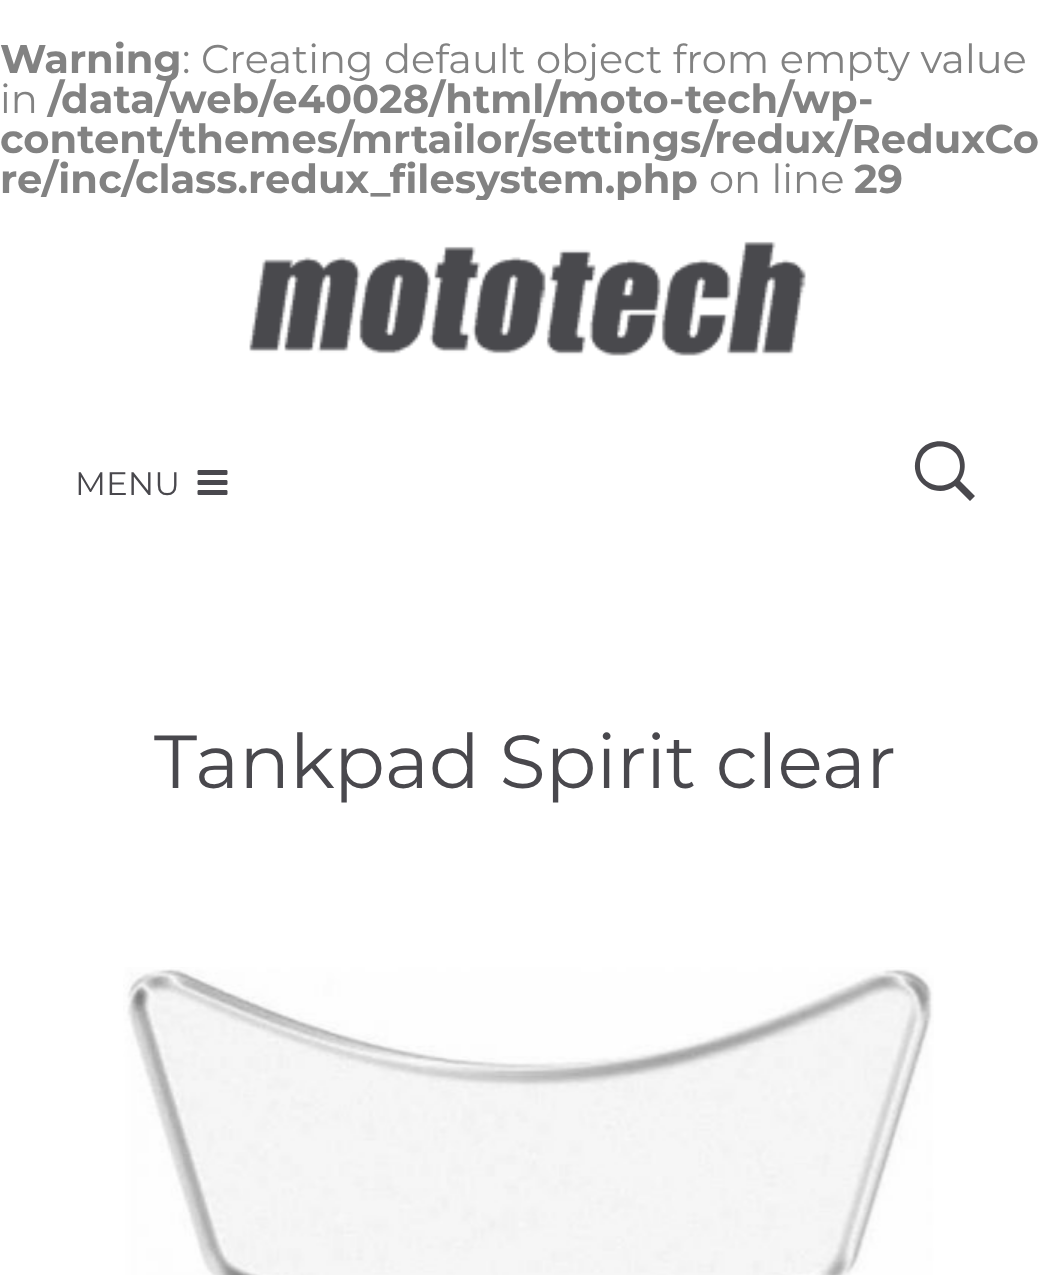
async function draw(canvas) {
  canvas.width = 1049;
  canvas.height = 1275;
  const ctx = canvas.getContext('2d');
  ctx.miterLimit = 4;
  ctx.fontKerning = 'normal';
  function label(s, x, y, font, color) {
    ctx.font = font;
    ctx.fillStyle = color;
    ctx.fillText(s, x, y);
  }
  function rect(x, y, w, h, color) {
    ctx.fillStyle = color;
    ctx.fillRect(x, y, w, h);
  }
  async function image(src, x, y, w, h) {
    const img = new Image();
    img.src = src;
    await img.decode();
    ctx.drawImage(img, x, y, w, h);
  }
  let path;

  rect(0, 0, 1049, 1275, '#fff');
  label('Warning', 0, 73, 'bold 40px Montserrat', '#828282');
  label(': Creating default object from empty value', 182, 73, '40px Montserrat', '#828282');
  label('in', 0, 113, '40px Montserrat', '#828282');
  label('/data/web/e40028/html/moto-tech/wp-', 48, 113, 'bold 40px Montserrat', '#828282');
  label('content/themes/mrtailor/settings/redux/ReduxCo', 0, 153, 'bold 40px Montserrat', '#828282');
  label('re/inc/class.redux_filesystem.php', 0, 193, 'bold 40px Montserrat', '#828282');
  label('on line', 709, 193, '40px Montserrat', '#828282');
  label('29', 854, 193, 'bold 40px Montserrat', '#828282');
  rect(477, 200, 203, 2, '#fff');
  await image('assets/img1.png', 249, 241, 557, 115);
  label('MENU', 75, 495, '32.5px Montserrat', '#49484d');
  await image('assets/img2.png', 197, 470, 31, 25);
  path = new Path2D('M975 496L960 481C968 470 966 453 954 445C947 441 938 440 930 443C924 445 919 450 917 456C907 480 935 501 955 486L970 501ZM920 466C920 440 960 440 960 466C960 492 920 492 920 466Z');
  ctx.fill(path);
  label('Tankpad Spirit clear', 154, 788, '75px Montserrat', '#49484d');
  await image('assets/img3.png', 123, 967, 811, 308);
}

draw(document.querySelector('canvas'));
